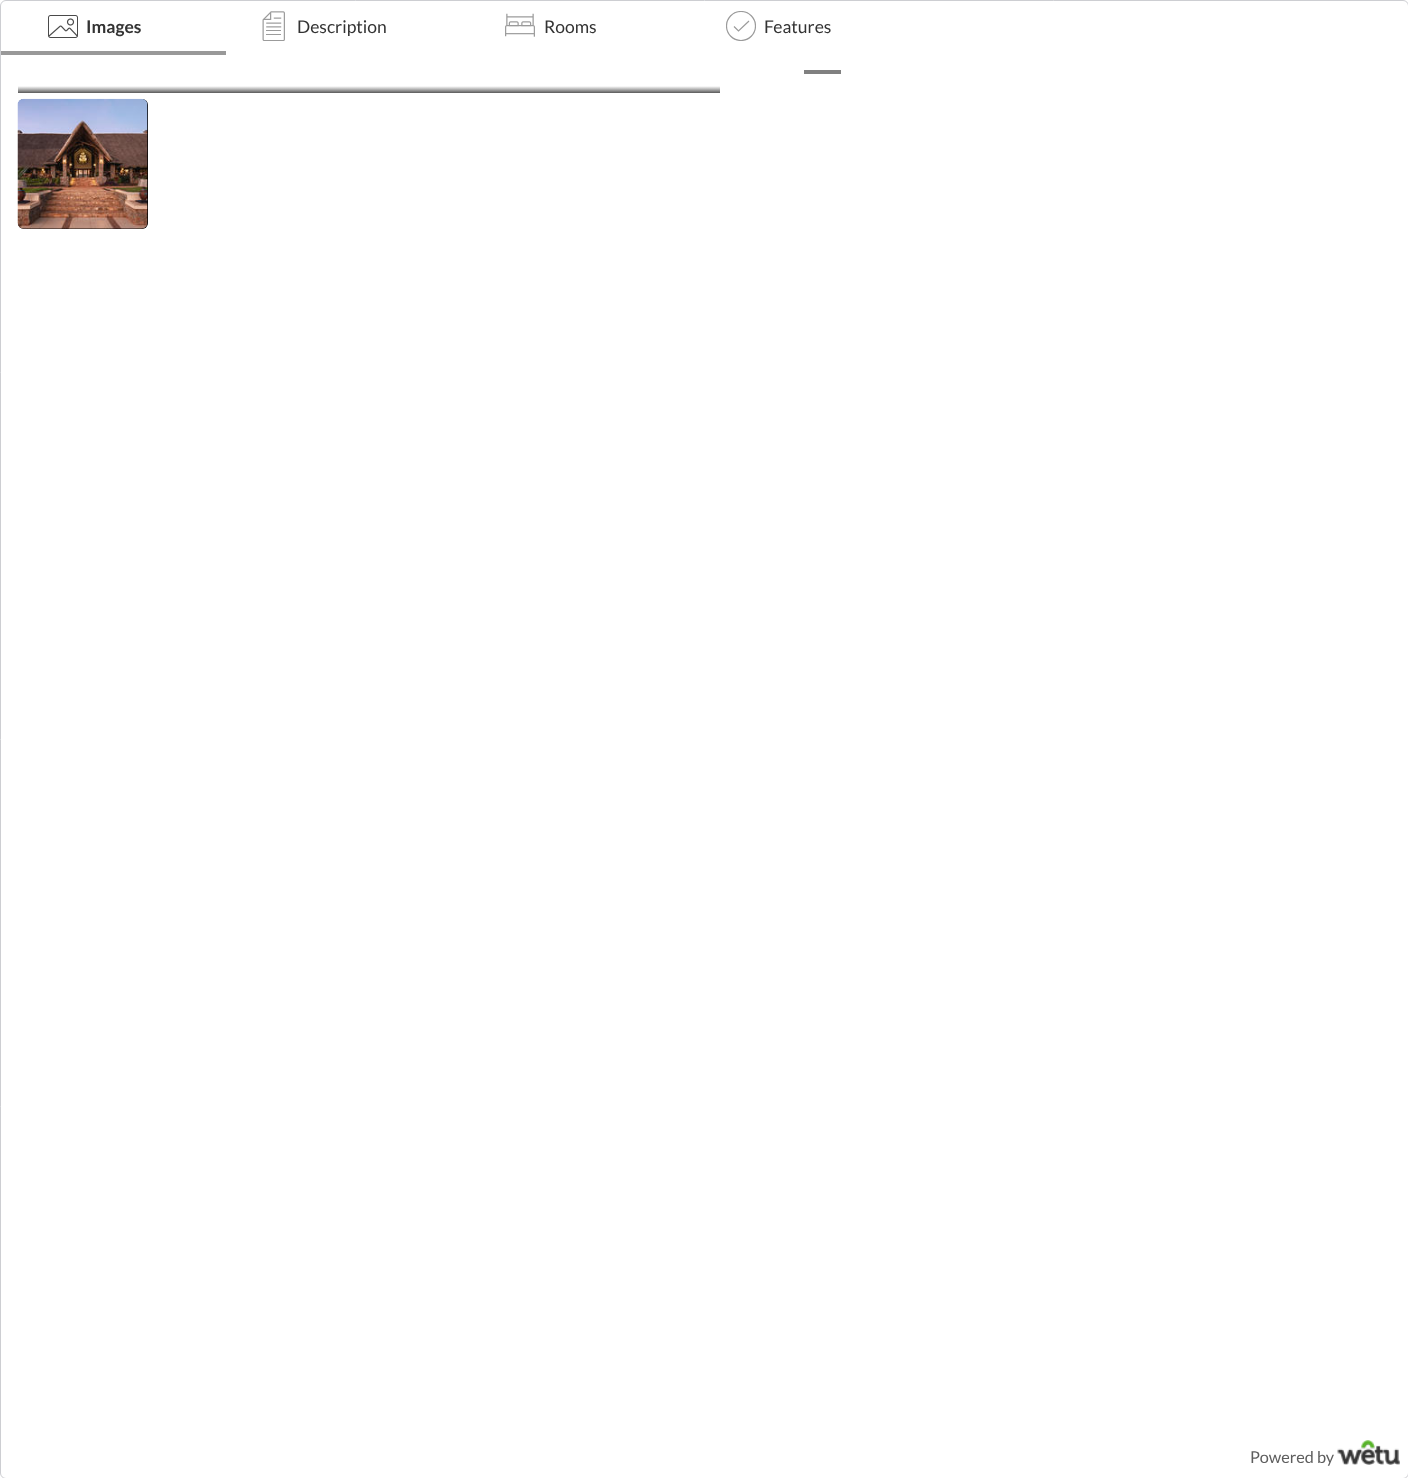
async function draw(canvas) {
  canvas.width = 1408;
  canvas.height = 1478;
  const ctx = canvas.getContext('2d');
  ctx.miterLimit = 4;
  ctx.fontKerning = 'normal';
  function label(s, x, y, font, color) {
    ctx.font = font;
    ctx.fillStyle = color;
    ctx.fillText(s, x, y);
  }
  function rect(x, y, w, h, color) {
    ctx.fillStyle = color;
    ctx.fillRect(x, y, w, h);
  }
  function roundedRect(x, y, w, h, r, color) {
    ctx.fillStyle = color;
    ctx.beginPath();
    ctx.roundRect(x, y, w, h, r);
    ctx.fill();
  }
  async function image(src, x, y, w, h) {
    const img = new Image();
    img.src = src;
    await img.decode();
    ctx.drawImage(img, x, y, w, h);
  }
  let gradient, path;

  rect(0, 0, 1408, 1478, '#fff');
  ctx.beginPath();
  ctx.roundRect(0.5, 0.5, 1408, 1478, 5.5);
  ctx.strokeStyle = '#cdced2';
  ctx.stroke();
  rect(1, 51, 225, 4, '#999');
  await image('assets/img1.png', 48, 15, 30, 23);
  label('Images', 86, 33, 'bold 17.5px Lato', '#333');
  await image('assets/img2.png', 262, 11, 23, 30);
  label('Description', 297, 33, '17.5px Lato', '#333');
  await image('assets/img3.png', 505, 13, 30, 24);
  label('Rooms', 544, 33, '17.5px Lato', '#333');
  ctx.save();
  ctx.beginPath();
  ctx.rect(726, 11, 30, 30);
  ctx.clip();
  ctx.beginPath();
  ctx.arc(741, 26, 14.5, 0, 2 * Math.PI);
  ctx.strokeStyle = '#9b9b9b';
  ctx.lineWidth = 1.2;
  ctx.stroke();
  ctx.restore();
  path = new Path2D('M734 26.5L738.5 31L749 21');
  ctx.strokeStyle = '#9b9b9b';
  ctx.lineWidth = 1.2;
  ctx.stroke(path);
  label('Features', 764, 33, '17.5px Lato', '#333');
  rect(804, 70, 37, 4, '#808080');
  gradient = ctx.createLinearGradient(369, 70, 369, 93);
  gradient.addColorStop(0.7, '#fff');
  gradient.addColorStop(1, '#595959');
  ctx.fillStyle = gradient;
  ctx.fillRect(18, 86, 702, 7);
  roundedRect(18, 99, 130, 130, 6, '#000');
  await image('assets/img4.png', 17, 98, 131, 131);
  label('Powered by', 1250, 1463, '16.25px Lato', '#5e5e5e');
  await image('assets/img5.png', 1337, 1440, 63, 25);
}

draw(document.querySelector('canvas'));
